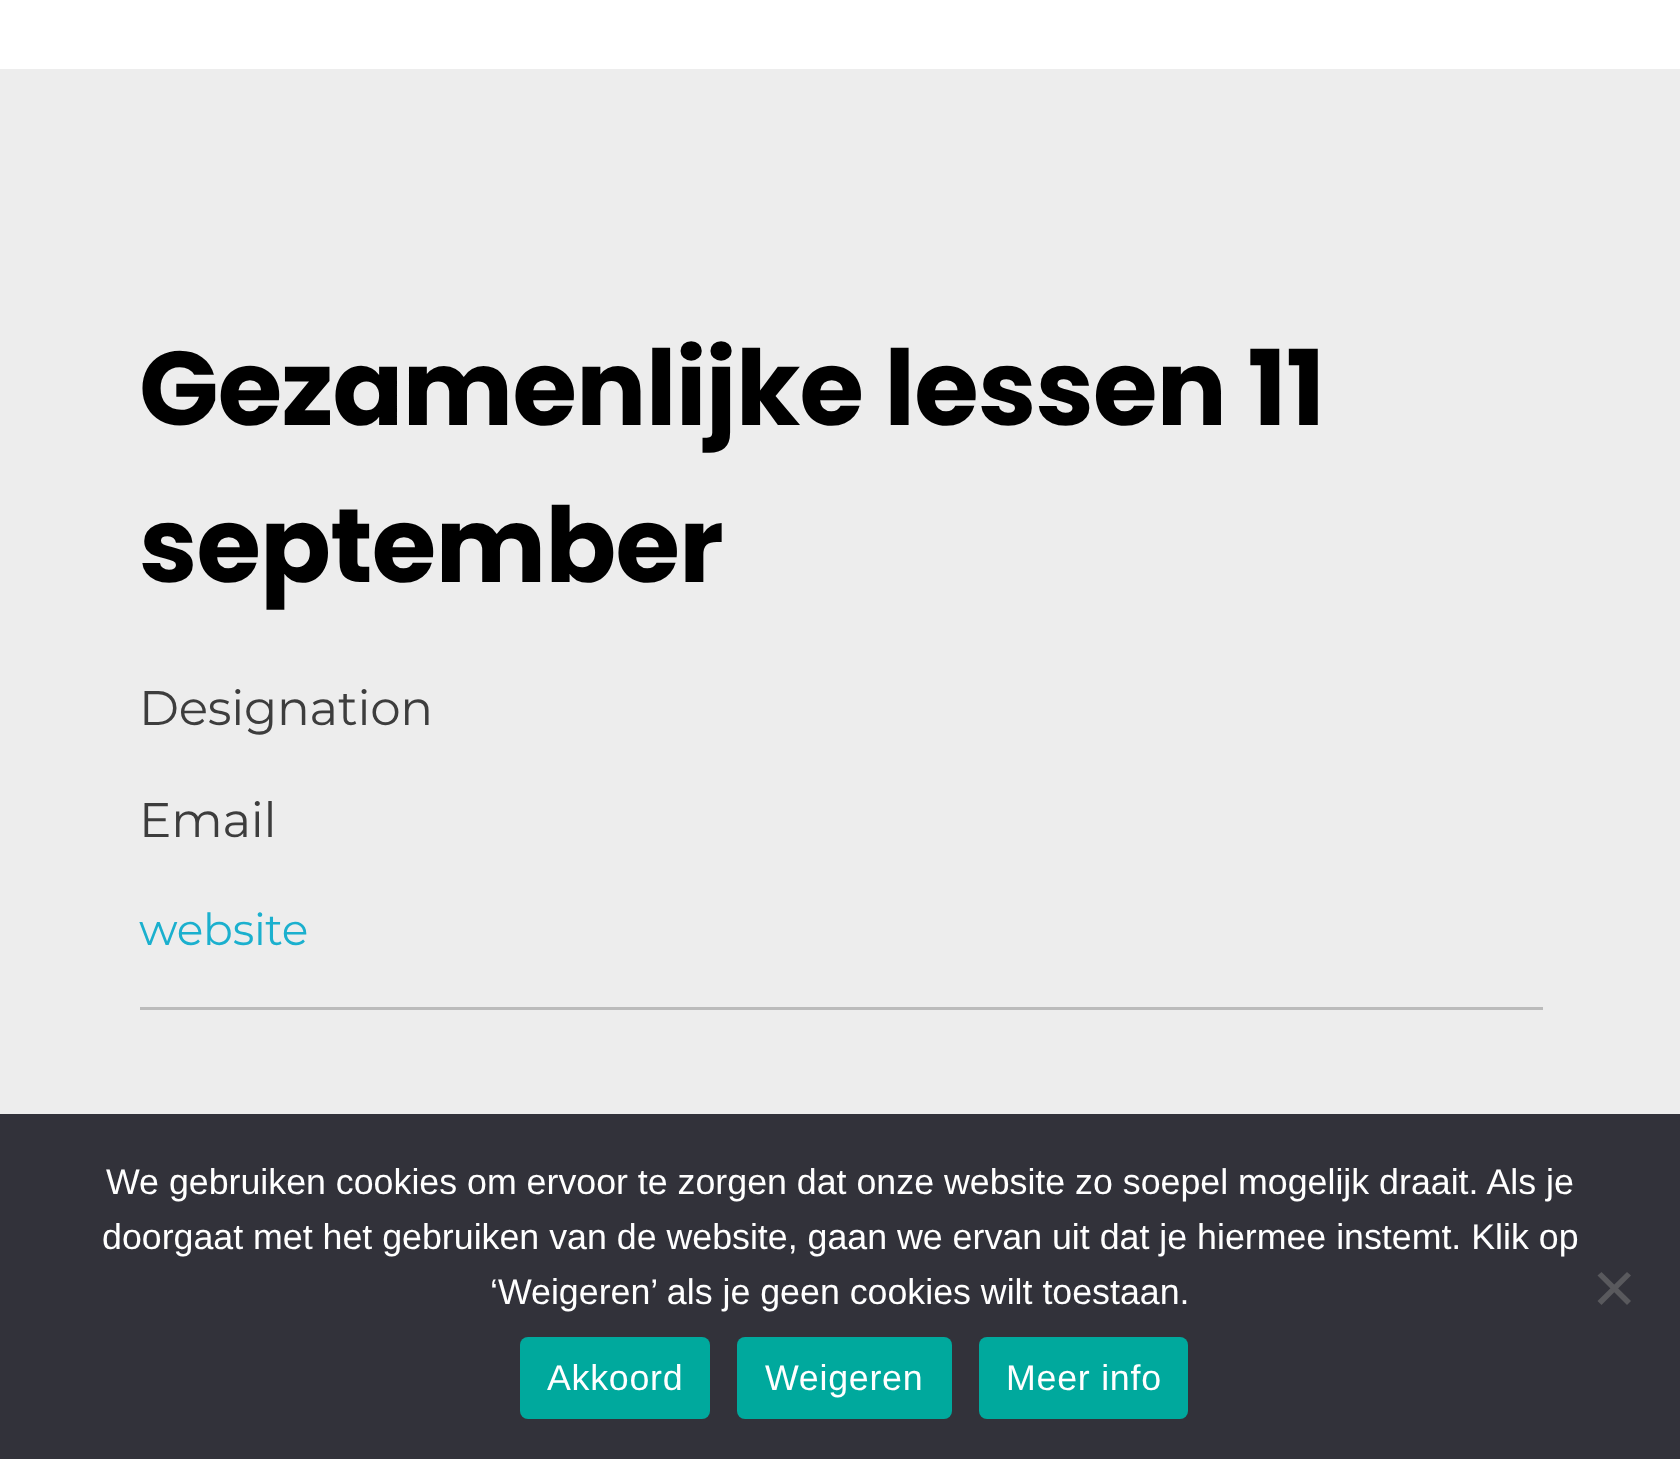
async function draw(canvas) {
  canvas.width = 1680;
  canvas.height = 1459;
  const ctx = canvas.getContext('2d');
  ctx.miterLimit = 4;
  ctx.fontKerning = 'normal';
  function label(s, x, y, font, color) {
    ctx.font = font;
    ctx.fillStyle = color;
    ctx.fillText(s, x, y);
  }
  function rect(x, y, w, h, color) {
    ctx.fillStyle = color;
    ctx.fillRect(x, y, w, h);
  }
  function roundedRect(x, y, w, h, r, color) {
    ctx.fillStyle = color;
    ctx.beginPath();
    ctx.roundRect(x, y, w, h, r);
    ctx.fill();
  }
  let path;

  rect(0, 0, 1680, 1459, '#ededed');
  rect(0, 0, 1680, 69, '#fff');
  ctx.letterSpacing = '-0.8px';
  label('Gezamenlijke lessen 11', 139, 425, 'bold 104.5px Poppins', '#000');
  label('september', 139, 582, 'bold 104.5px Poppins', '#000');
  ctx.letterSpacing = '-0.25px';
  label('Designation', 139, 725, '48.5px Montserrat', '#3d3d3d');
  label('Email', 139, 837, '48.5px Montserrat', '#3d3d3d');
  label('website', 139, 945, '44px Montserrat', '#1bb0ce');
  rect(140, 1007, 1403, 3, '#bbb');
  rect(0, 1114, 1680, 345, '#32323a');
  ctx.letterSpacing = '0px';
  label('We gebruiken cookies om ervoor te zorgen dat onze website zo soepel mogelijk draait. Als je', 106, 1194, '35.75px Liberation Sans', '#fff');
  label('doorgaat met het gebruiken van de website, gaan we ervan uit dat je hiermee instemt. Klik op', 102, 1249, '35.75px Liberation Sans', '#fff');
  label('‘Weigeren’ als je geen cookies wilt toestaan.', 490, 1304, '35.75px Liberation Sans', '#fff');
  ctx.fillStyle = '#59595d';
  path = new Path2D('M1627 1272L1631 1275.5L1601.5 1305L1597.5 1301Z');
  ctx.fill(path);
  path = new Path2D('M1597.5 1275.5L1601.5 1272L1631 1301L1627 1305Z');
  ctx.fill(path);
  roundedRect(520, 1337, 190, 82, 8, '#00a99d');
  ctx.letterSpacing = '0.75px';
  label('Akkoord', 547, 1390, '35.75px Liberation Sans', '#fff');
  roundedRect(737, 1337, 215, 82, 8, '#00a99d');
  label('Weigeren', 765, 1390, '35.75px Liberation Sans', '#fff');
  roundedRect(979, 1337, 209, 82, 8, '#00a99d');
  label('Meer info', 1006, 1390, '35.75px Liberation Sans', '#fff');
}

draw(document.querySelector('canvas'));
